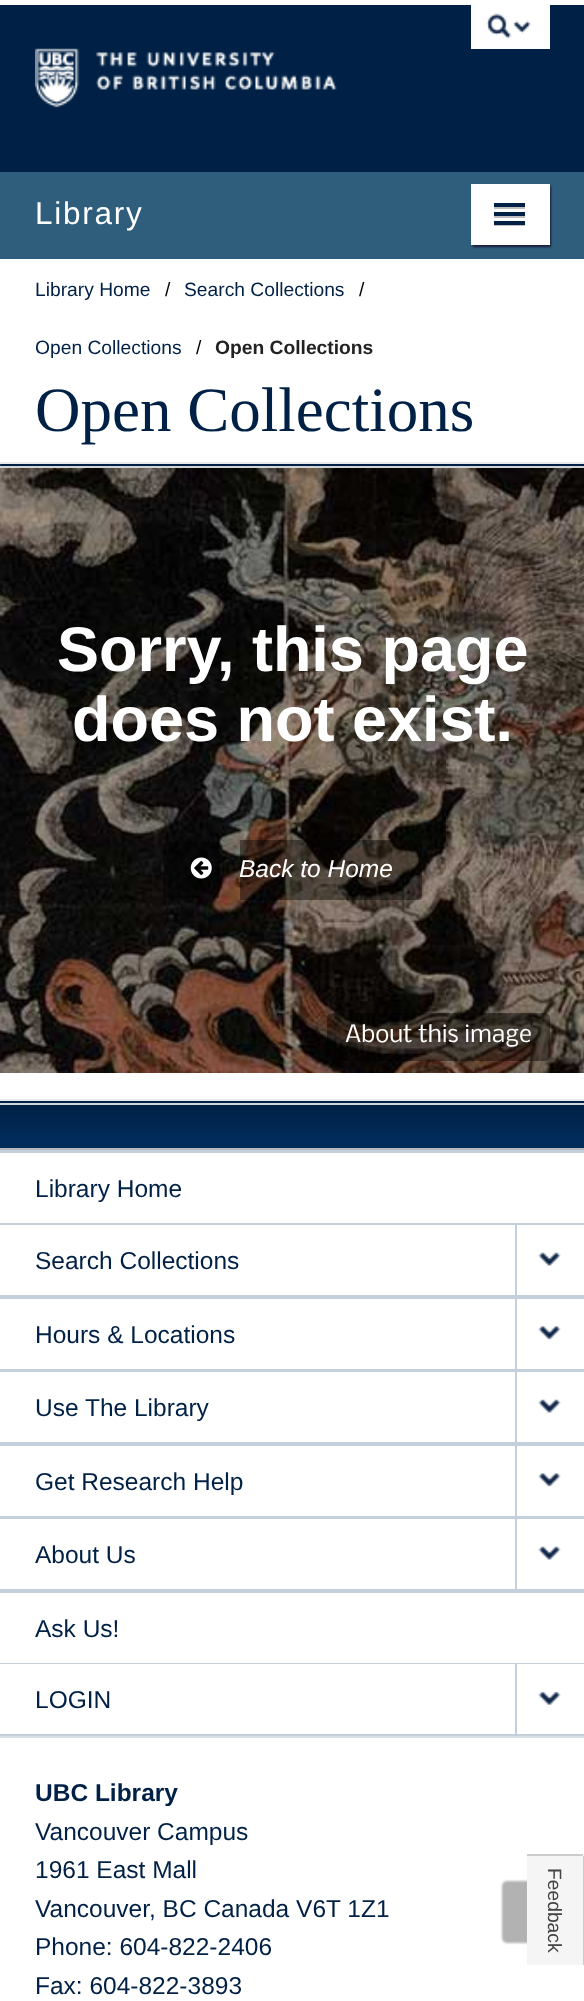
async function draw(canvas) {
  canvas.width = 584;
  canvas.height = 2001;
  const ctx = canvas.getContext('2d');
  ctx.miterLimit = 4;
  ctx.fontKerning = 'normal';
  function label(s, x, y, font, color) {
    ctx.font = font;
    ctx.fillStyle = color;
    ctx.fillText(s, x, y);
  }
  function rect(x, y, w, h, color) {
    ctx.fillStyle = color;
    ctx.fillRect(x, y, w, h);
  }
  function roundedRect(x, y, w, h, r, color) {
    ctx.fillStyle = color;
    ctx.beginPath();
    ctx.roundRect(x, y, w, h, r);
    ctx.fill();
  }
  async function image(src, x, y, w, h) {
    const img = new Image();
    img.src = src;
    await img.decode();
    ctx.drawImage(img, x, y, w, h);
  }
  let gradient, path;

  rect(0, 0, 584, 2001, '#fff');
  rect(0, 5, 584, 167, '#002145');
  await image('assets/img1.png', 35, 48, 302, 60);
  rect(471, 5, 79, 44, '#fff');
  await image('assets/img2.png', 486, 13, 45, 26);
  rect(0, 172, 584, 87, '#2f5d7c');
  ctx.letterSpacing = '1.75px';
  label('Library', 35, 224, '31.5px Liberation Sans', '#fff');
  ctx.fillStyle = '#191938';
  ctx.filter = 'blur(1px)';
  ctx.beginPath();
  ctx.rect(473, 186, 78, 61);
  ctx.fill();
  ctx.filter = 'none';
  rect(471, 184, 79, 61, '#fff');
  rect(494, 207, 31, 2, '#bfbfbf');
  rect(494, 203, 31, 4, '#002145');
  rect(494, 216, 31, 2, '#bfbfbf');
  rect(494, 212, 31, 4, '#002145');
  rect(494, 225, 31, 1, '#bfbfbf');
  rect(494, 221, 31, 4, '#002145');
  ctx.letterSpacing = '0px';
  label('Library Home', 35, 296, '19.25px Liberation Sans', '#002145');
  label('/', 165, 296, '19.25px Liberation Sans', '#000');
  label('Search Collections', 184, 296, '19.25px Liberation Sans', '#002145');
  label('/', 359, 296, '19.25px Liberation Sans', '#000');
  label('Open Collections', 35, 354, '19.25px Liberation Sans', '#002145');
  label('/', 196, 354, '19.25px Liberation Sans', '#000');
  label('Open Collections', 215, 354, 'bold 19.25px Liberation Sans', '#222');
  label('Open Collections', 35, 431, '63px Liberation Serif', '#002145');
  await image('assets/img8.png', 0, 464, 584, 609);
  roundedRect(0, 464, 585, 2, 1, '#002145');
  rect(0, 462, 584, 2, '#e9e9eb');
  rect(0, 466, 584, 2, '#d3d5d8');
  label('Sorry, this page', 57, 671, 'bold 63px Liberation Sans', '#fff');
  label('does not exist.', 72, 741, 'bold 63px Liberation Sans', '#fff');
  ctx.fillStyle = '#00000066';
  ctx.beginPath();
  ctx.roundRect(163, 842, 56, 56, [4, 0, 0, 4]);
  ctx.fill();
  ctx.beginPath();
  ctx.roundRect(240, 840, 182, 60, [0, 4, 4, 0]);
  ctx.fill();
  await image('assets/img3.png', 190, 857, 22, 22);
  label('Back to Home', 239, 877, 'italic 24.5px Liberation Sans', '#fff');
  roundedRect(327, 1013, 223, 48, 5, '#00000066');
  label('About this image', 345, 1042, '22.75px Nobile', '#fff');
  gradient = ctx.createLinearGradient(292, 1099, 292, 1148);
  gradient.addColorStop(0.15, '#002145');
  gradient.addColorStop(0.85, '#002c5b');
  ctx.fillStyle = gradient;
  ctx.fillRect(0, 1101, 584, 47);
  rect(0, 1148, 584, 2, '#b8bac0');
  rect(0, 1099, 584, 2, '#e9e9eb');
  rect(0, 1103, 584, 2, '#d3d5d8');
  rect(0, 1150, 584, 3, '#c3d0db');
  rect(0, 1223, 584, 2, '#c3d0db');
  label('Library Home', 35, 1197, '24.5px Liberation Sans', '#002145');
  rect(0, 1297, 584, 2, '#c3d0db');
  rect(0, 1295, 584, 2, '#c3d0db');
  label('Search Collections', 35, 1269, '24.5px Liberation Sans', '#002145');
  rect(515, 1225, 2, 72, '#c3d0db');
  await image('assets/img4.png', 538, 1252, 23, 14);
  rect(0, 1371, 584, 1, '#c3d0db');
  rect(0, 1369, 584, 2, '#c3d0db');
  label('Hours & Locations', 35, 1343, '24.5px Liberation Sans', '#002145');
  rect(515, 1299, 2, 71, '#c3d0db');
  await image('assets/img5.png', 538, 1326, 23, 14);
  rect(0, 1444, 584, 2, '#c3d0db');
  rect(0, 1442, 584, 2, '#c3d0db');
  label('Use The Library', 35, 1416, '24.5px Liberation Sans', '#002145');
  rect(515, 1372, 2, 72, '#c3d0db');
  await image('assets/img4.png', 538, 1399, 23, 14);
  rect(0, 1518, 584, 1, '#c3d0db');
  rect(0, 1516, 584, 2, '#c3d0db');
  label('Get Research Help', 35, 1490, '24.5px Liberation Sans', '#002145');
  rect(515, 1446, 2, 71, '#c3d0db');
  await image('assets/img6.png', 538, 1473, 23, 14);
  rect(0, 1591, 584, 2, '#c3d0db');
  rect(0, 1589, 584, 2, '#c3d0db');
  label('About Us', 35, 1563, '24.5px Liberation Sans', '#002145');
  rect(515, 1519, 2, 72, '#c3d0db');
  await image('assets/img4.png', 538, 1546, 23, 14);
  rect(0, 1663, 584, 1, '#c3d0db');
  label('Ask Us!', 35, 1637, '24.5px Liberation Sans', '#002145');
  rect(0, 1734, 584, 2, '#c3d0db');
  label('LOGIN', 35, 1708, '24.5px Liberation Sans', '#002145');
  rect(515, 1664, 2, 72, '#c3d0db');
  await image('assets/img7.png', 538, 1691, 23, 14);
  rect(0, 1736, 584, 2, '#d7e0e7');
  label('UBC Library', 35, 1801, 'bold 24.5px Liberation Sans', '#002145');
  label('Vancouver Campus', 35, 1840, '24.5px Liberation Sans', '#002145');
  label('1961 East Mall', 35, 1878, '24.5px Liberation Sans', '#002145');
  label('Vancouver, BC Canada V6T 1Z1', 35, 1917, '24.5px Liberation Sans', '#002145');
  label('Phone: 604-822-2406', 35, 1955, '24.5px Liberation Sans', '#002145');
  label('Fax: 604-822-3893', 35, 1994, '24.5px Liberation Sans', '#002145');
  ctx.fillStyle = '#0000004d';
  ctx.filter = 'blur(1px)';
  ctx.beginPath();
  ctx.roundRect(502, 1881, 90, 62, 5);
  ctx.fill();
  ctx.filter = 'none';
  ctx.fillStyle = '#f5f5f5';
  path = new Path2D('M584 1858V1965H527V1854H581C583 1854 584 1856 584 1858Z');
  ctx.fill(path);
  rect(583, 1856, 1, 109, '#ccc');
  rect(527, 1854, 56, 2, '#ccc');
  ctx.font = '19.25px Liberation Sans';
  ctx.fillStyle = '#444';
  ctx.save();
  ctx.translate(548, 1868);
  ctx.rotate(90 * Math.PI / 180);
  ctx.fillText('Feedback', 0, 0);
  ctx.restore();
}

draw(document.querySelector('canvas'));
